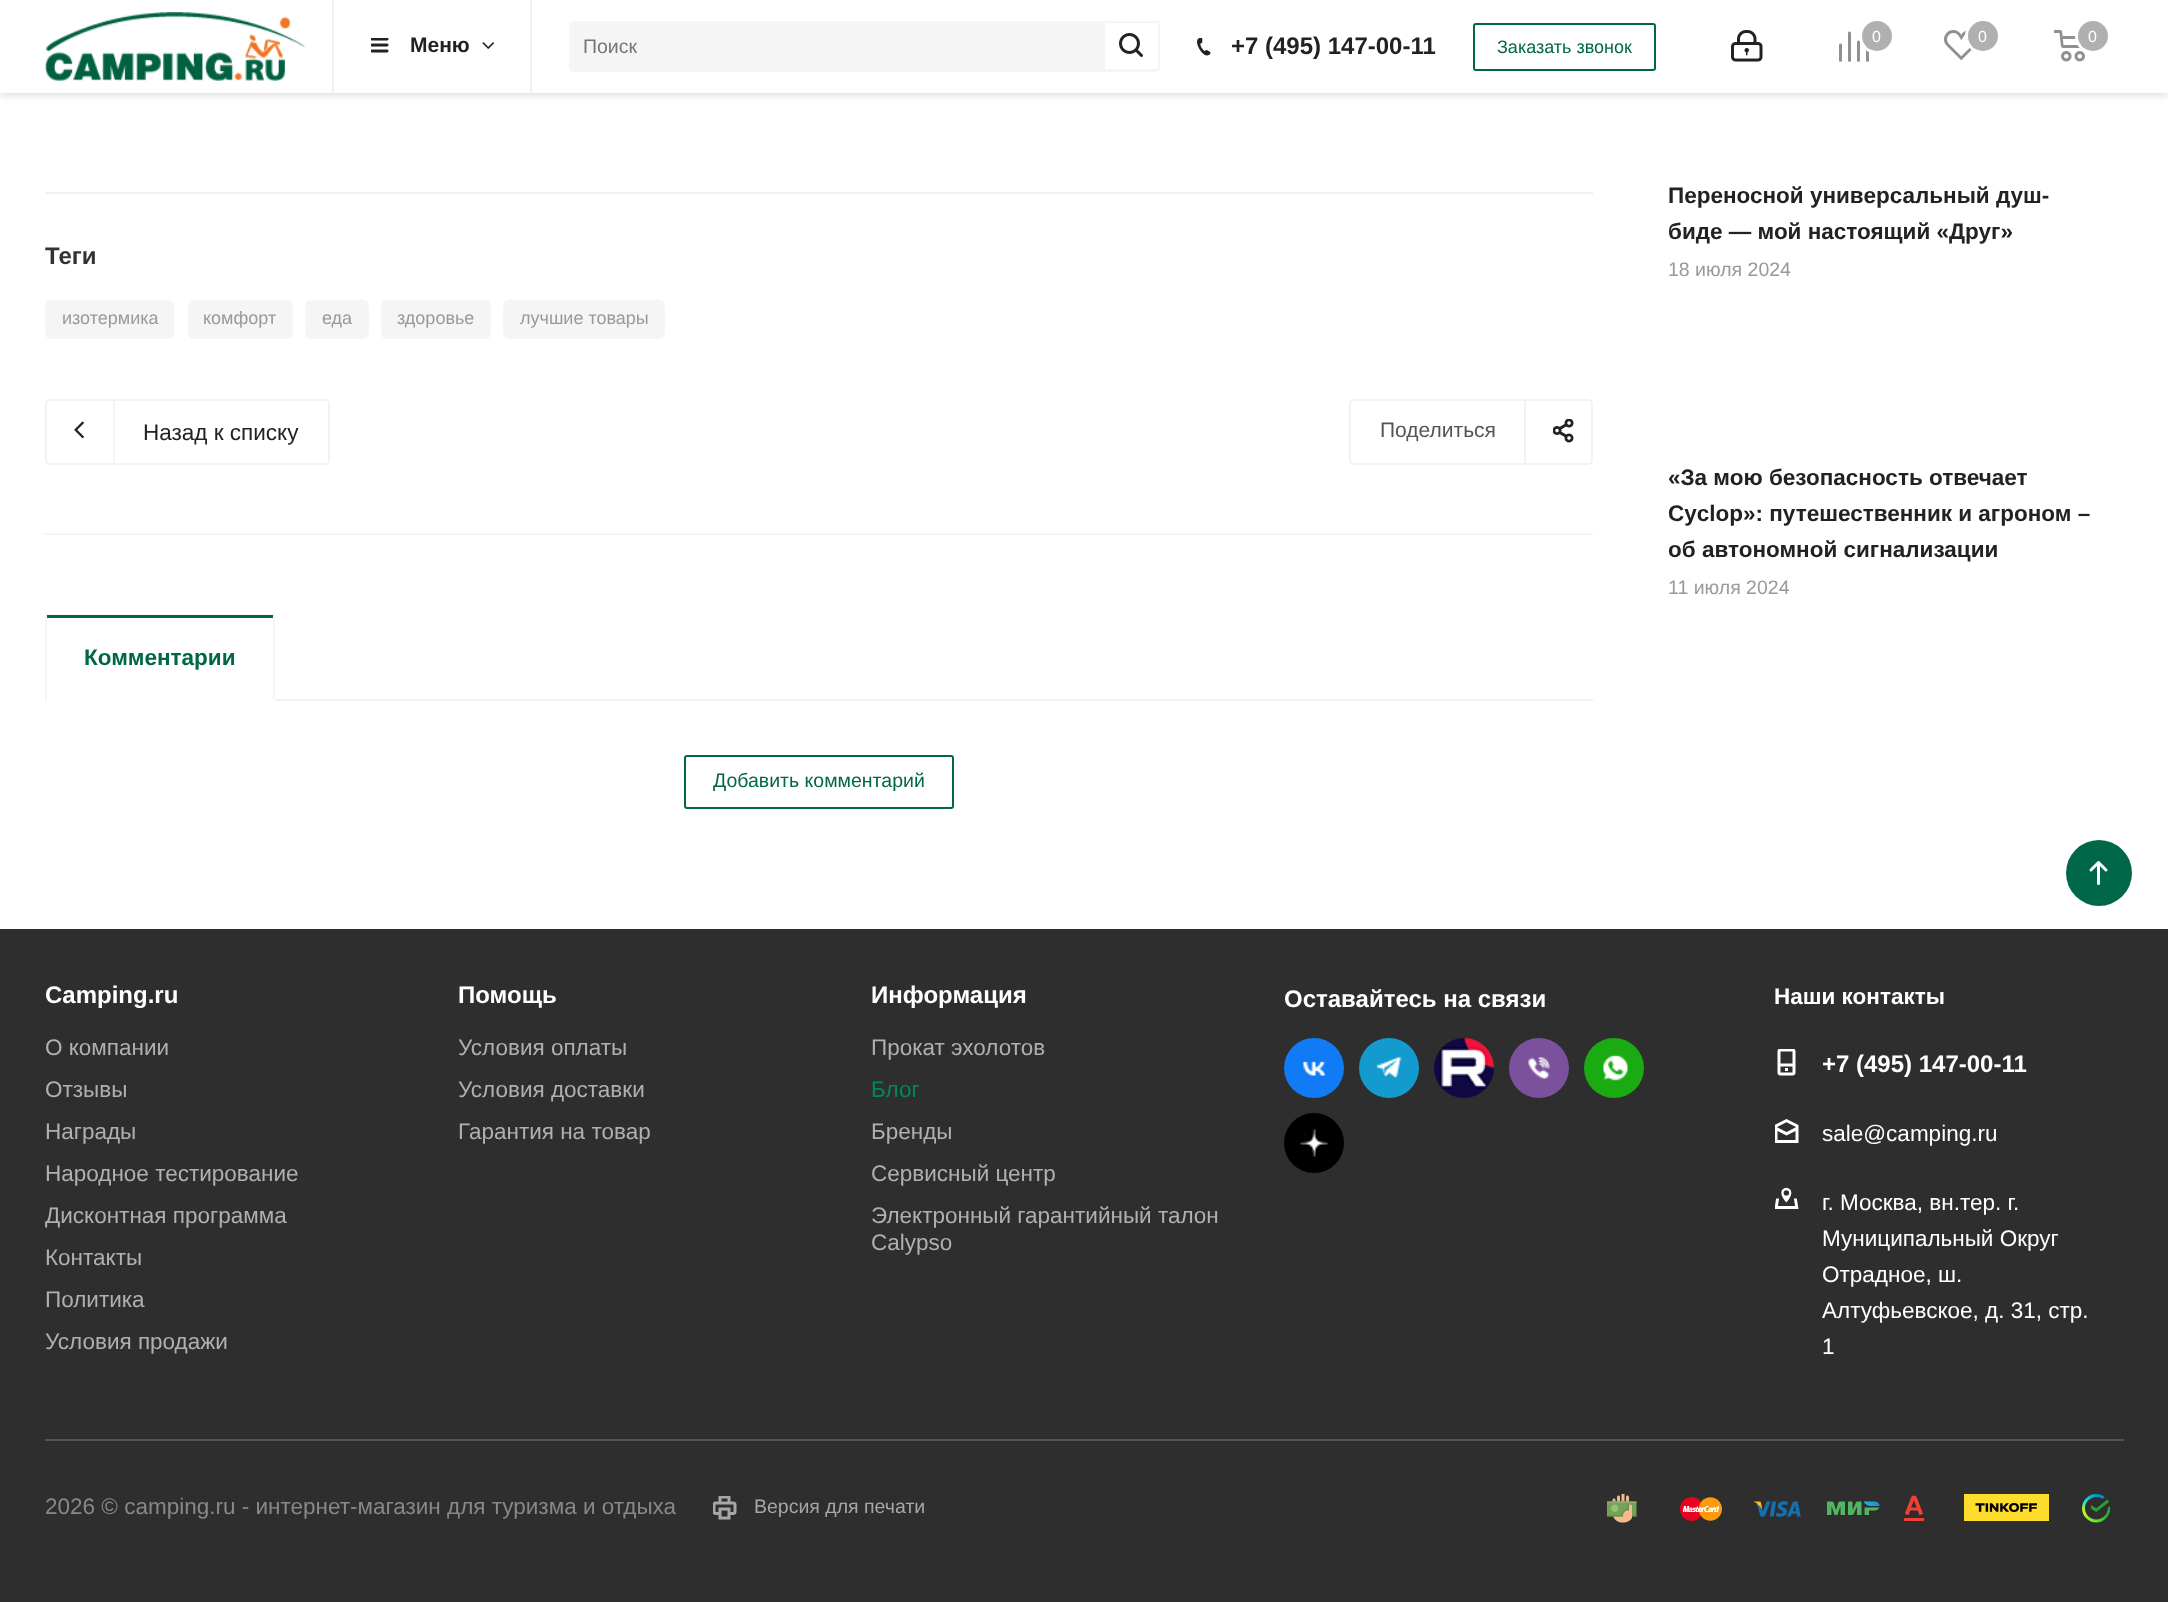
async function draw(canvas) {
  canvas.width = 2168;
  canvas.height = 1602;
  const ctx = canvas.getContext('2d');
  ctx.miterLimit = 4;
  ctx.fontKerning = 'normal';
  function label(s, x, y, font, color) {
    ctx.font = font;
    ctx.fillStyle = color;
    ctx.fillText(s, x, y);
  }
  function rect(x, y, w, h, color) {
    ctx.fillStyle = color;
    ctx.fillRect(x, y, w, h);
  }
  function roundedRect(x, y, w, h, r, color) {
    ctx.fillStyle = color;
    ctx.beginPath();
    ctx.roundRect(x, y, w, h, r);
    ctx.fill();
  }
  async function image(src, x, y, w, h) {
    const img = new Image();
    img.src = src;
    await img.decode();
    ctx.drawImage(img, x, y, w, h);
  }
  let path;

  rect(0, 0, 2168, 1602, '#fff');
  ctx.fillStyle = '#00000024';
  ctx.filter = 'blur(4px)';
  ctx.beginPath();
  ctx.rect(0, 2, 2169, 93);
  ctx.fill();
  ctx.filter = 'none';
  rect(0, 0, 2168, 93, '#fff');
  rect(332, 0, 2, 93, '#f2f2f2');
  await image('assets/img1.png', 45, 12, 260, 69);
  rect(530, 0, 2, 93, '#f2f2f2');
  await image('assets/img2.png', 371, 38, 18, 15);
  label('Меню', 410, 52, 'bold 21px Liberation Sans', '#222');
  await image('assets/img3.png', 482, 42, 12, 7);
  roundedRect(569, 21, 591, 51, 5, '#f5f5f5');
  label('Поиск', 583, 53, '19.5px Liberation Sans', '#757575');
  ctx.fillStyle = '#fff';
  ctx.beginPath();
  ctx.roundRect(1104, 22, 55, 48, 2);
  ctx.fill();
  ctx.strokeStyle = '#f5f5f5';
  ctx.lineWidth = 2;
  ctx.stroke();
  await image('assets/img4.png', 1119, 33, 24, 24);
  await image('assets/img5.png', 1197, 38, 14, 18);
  label('+7 (495) 147-00-11', 1231, 54, 'bold 24px Liberation Sans', '#222');
  ctx.beginPath();
  ctx.roundRect(1474, 24, 181, 46, 2);
  ctx.strokeStyle = '#006848';
  ctx.stroke();
  label('Заказать звонок', 1497, 53, '18px Liberation Sans', '#006848');
  await image('assets/img6.png', 1731, 30, 32, 32);
  await image('assets/img7.png', 1839, 31, 30, 31);
  ctx.beginPath();
  ctx.arc(1877, 36, 16.5, 0, 2 * Math.PI);
  ctx.strokeStyle = '#fff';
  ctx.lineWidth = 3;
  ctx.stroke();
  ctx.fillStyle = '#b0b0b0';
  ctx.beginPath();
  ctx.arc(1877, 36, 15, 0, 2 * Math.PI);
  ctx.fill();
  label('0', 1872, 42, '16px Liberation Sans', '#fff');
  await image('assets/img8.png', 1944, 30, 30, 30);
  ctx.beginPath();
  ctx.arc(1983, 36, 16.5, 0, 2 * Math.PI);
  ctx.stroke();
  ctx.fillStyle = '#b0b0b0';
  ctx.beginPath();
  ctx.arc(1983, 36, 15, 0, 2 * Math.PI);
  ctx.fill();
  label('0', 1978, 42, '16px Liberation Sans', '#fff');
  await image('assets/img9.png', 2054, 30, 31, 32);
  ctx.beginPath();
  ctx.arc(2093, 36, 16.5, 0, 2 * Math.PI);
  ctx.stroke();
  ctx.fillStyle = '#b0b0b0';
  ctx.beginPath();
  ctx.arc(2093, 36, 15, 0, 2 * Math.PI);
  ctx.fill();
  label('0', 2088, 42, '16px Liberation Sans', '#fff');
  rect(45, 192, 1548, 2, '#f0f0f0');
  label('Теги', 45, 264, 'bold 24px Liberation Sans', '#333');
  roundedRect(45, 300, 129, 39, 6, '#f5f5f5');
  label('изотермика', 62, 324, '18px Liberation Sans', '#999');
  roundedRect(188, 300, 105, 39, 6, '#f5f5f5');
  label('комфорт', 203, 324, '18px Liberation Sans', '#999');
  roundedRect(305, 300, 64, 39, 6, '#f5f5f5');
  label('еда', 322, 324, '18px Liberation Sans', '#999');
  roundedRect(381, 300, 110, 39, 6, '#f5f5f5');
  label('здоровье', 397, 324, '18px Liberation Sans', '#999');
  roundedRect(503, 300, 162, 39, 6, '#f5f5f5');
  label('лучшие товары', 520, 324, '18px Liberation Sans', '#999');
  ctx.beginPath();
  ctx.roundRect(46, 400, 283, 64, 4);
  ctx.strokeStyle = '#f2f2f2';
  ctx.lineWidth = 2;
  ctx.stroke();
  await image('assets/img10.png', 74, 421, 10, 18);
  rect(113, 401, 2, 63, '#f5f5f5');
  label('Назад к списку', 143, 440, '22.5px Liberation Sans', '#222');
  ctx.beginPath();
  ctx.roundRect(1350, 400, 242, 64, 4);
  ctx.stroke();
  label('Поделиться', 1380, 437, '21px Liberation Sans', '#555');
  rect(1524, 401, 2, 63, '#f2f2f2');
  await image('assets/img11.png', 1553, 419, 21, 24);
  rect(45, 533, 1548, 2, '#f5f5f5');
  rect(275, 699, 1318, 2, '#f2f2f2');
  rect(45, 614, 230, 1, '#f5f5f5');
  rect(273, 614, 2, 87, '#f5f5f5');
  rect(273, 699, 2, 2, '#fff');
  rect(45, 614, 2, 87, '#f5f5f5');
  rect(47, 615, 226, 3, '#006848');
  label('Комментарии', 84, 665, 'bold 22.5px Liberation Sans', '#006848');
  ctx.beginPath();
  ctx.roundRect(685, 756, 268, 52, 2);
  ctx.strokeStyle = '#006848';
  ctx.stroke();
  label('Добавить комментарий', 713, 787, '19.5px Liberation Sans', '#006848');
  label('Переносной универсальный душ-', 1668, 203, 'bold 22.5px Liberation Sans', '#222');
  label('биде — мой настоящий «Друг»', 1668, 239, 'bold 22.5px Liberation Sans', '#222');
  label('18 июля 2024', 1668, 276, '19.5px Liberation Sans', '#999');
  label('«За мою безопасность отвечает', 1668, 485, 'bold 22.5px Liberation Sans', '#222');
  label('Cyclop»: путешественник и агроном –', 1668, 521, 'bold 22.5px Liberation Sans', '#222');
  label('об автономной сигнализации', 1668, 557, 'bold 22.5px Liberation Sans', '#222');
  label('11 июля 2024', 1668, 594, '19.5px Liberation Sans', '#999');
  ctx.fillStyle = '#006848';
  ctx.beginPath();
  ctx.arc(2099, 873, 33, 0, 2 * Math.PI);
  ctx.fill();
  path = new Path2D('M2098.5 862.5V883.5M2091 870L2098.5 862.5L2106 870');
  ctx.strokeStyle = '#fff';
  ctx.lineWidth = 3;
  ctx.lineCap = 'round';
  ctx.lineJoin = 'round';
  ctx.stroke(path);
  rect(0, 929, 2168, 673, '#2e2e2f');
  label('Camping.ru', 45, 1003, 'bold 24px Liberation Sans', '#fff');
  label('О компании', 45, 1055, '22.5px Liberation Sans', '#b0b0b0');
  label('Отзывы', 45, 1097, '22.5px Liberation Sans', '#b0b0b0');
  label('Награды', 45, 1139, '22.5px Liberation Sans', '#b0b0b0');
  label('Народное тестирование', 45, 1181, '22.5px Liberation Sans', '#b0b0b0');
  label('Дисконтная программа', 45, 1223, '22.5px Liberation Sans', '#b0b0b0');
  label('Контакты', 45, 1265, '22.5px Liberation Sans', '#b0b0b0');
  label('Политика', 45, 1307, '22.5px Liberation Sans', '#b0b0b0');
  label('Условия продажи', 45, 1349, '22.5px Liberation Sans', '#b0b0b0');
  label('Помощь', 458, 1003, 'bold 24px Liberation Sans', '#fff');
  label('Условия оплаты', 458, 1055, '22.5px Liberation Sans', '#b0b0b0');
  label('Условия доставки', 458, 1097, '22.5px Liberation Sans', '#b0b0b0');
  label('Гарантия на товар', 458, 1139, '22.5px Liberation Sans', '#b0b0b0');
  label('Информация', 871, 1003, 'bold 24px Liberation Sans', '#fff');
  label('Прокат эхолотов', 871, 1055, '22.5px Liberation Sans', '#b0b0b0');
  label('Блог', 871, 1097, '22.5px Liberation Sans', '#00875d');
  label('Бренды', 871, 1139, '22.5px Liberation Sans', '#b0b0b0');
  label('Сервисный центр', 871, 1181, '22.5px Liberation Sans', '#b0b0b0');
  label('Электронный гарантийный талон', 871, 1223, '22.5px Liberation Sans', '#b0b0b0');
  label('Calypso', 871, 1250, '22.5px Liberation Sans', '#b0b0b0');
  label('Оставайтесь на связи', 1284, 1007, 'bold 24px Liberation Sans', '#fff');
  await image('assets/img12.png', 1284, 1038, 60, 60);
  await image('assets/img13.png', 1359, 1038, 60, 60);
  await image('assets/img14.png', 1434, 1038, 60, 60);
  await image('assets/img15.png', 1509, 1038, 60, 60);
  await image('assets/img16.png', 1584, 1038, 60, 60);
  await image('assets/img17.png', 1284, 1113, 60, 60);
  label('Наши контакты', 1774, 1004, 'bold 22.5px Liberation Sans', '#fff');
  await image('assets/img18.png', 1777, 1049, 19, 27);
  label('+7 (495) 147-00-11', 1822, 1072, 'bold 24px Liberation Sans', '#fff');
  await image('assets/img19.png', 1775, 1119, 24, 24);
  label('sale@camping.ru', 1822, 1141, '22.5px Liberation Sans', '#fff');
  await image('assets/img20.png', 1775, 1187, 24, 22);
  label('г. Москва, вн.тер. г.', 1822, 1210, '22.5px Liberation Sans', '#fff');
  label('Муниципальный Округ', 1822, 1246, '22.5px Liberation Sans', '#fff');
  label('Отрадное, ш.', 1822, 1282, '22.5px Liberation Sans', '#fff');
  label('Алтуфьевское, д. 31, стр.', 1822, 1318, '22.5px Liberation Sans', '#fff');
  label('1', 1822, 1354, '22.5px Liberation Sans', '#fff');
  rect(45, 1439, 2079, 2, '#555');
  label('2026 © camping.ru - интернет-магазин для туризма и отдыха', 45, 1514, '22.5px Liberation Sans', '#888');
  await image('assets/img21.png', 713, 1496, 24, 24);
  label('Версия для печати', 754, 1513, '19.5px Liberation Sans', '#a7a7a7');
  await image('assets/img22.png', 1607, 1494, 30, 29);
  await image('assets/img23.png', 1680, 1497, 42, 24);
  await image('assets/img24.png', 1754, 1501, 47, 16);
  await image('assets/img25.png', 1827, 1501, 53, 14);
  await image('assets/img26.png', 1904, 1495, 21, 26);
  await image('assets/img27.png', 1964, 1494, 85, 27);
  await image('assets/img28.png', 2082, 1494, 29, 29);
}

draw(document.querySelector('canvas'));
